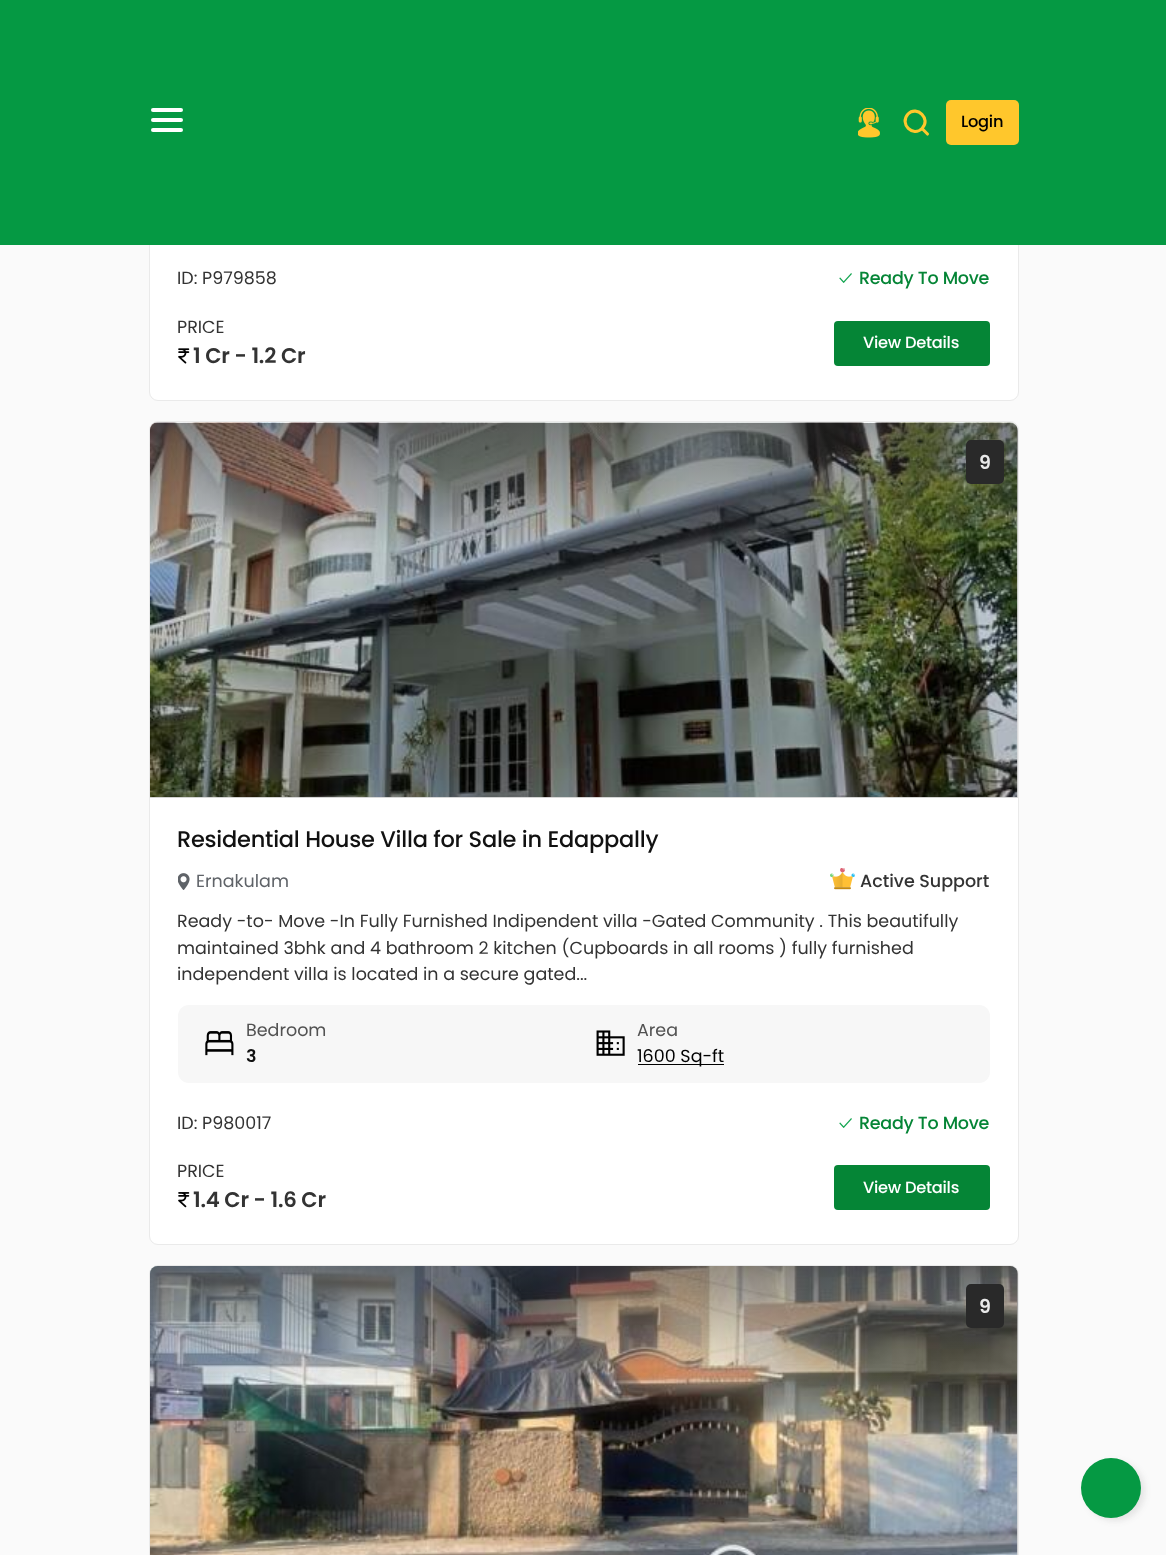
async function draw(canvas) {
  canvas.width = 1166;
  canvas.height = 1555;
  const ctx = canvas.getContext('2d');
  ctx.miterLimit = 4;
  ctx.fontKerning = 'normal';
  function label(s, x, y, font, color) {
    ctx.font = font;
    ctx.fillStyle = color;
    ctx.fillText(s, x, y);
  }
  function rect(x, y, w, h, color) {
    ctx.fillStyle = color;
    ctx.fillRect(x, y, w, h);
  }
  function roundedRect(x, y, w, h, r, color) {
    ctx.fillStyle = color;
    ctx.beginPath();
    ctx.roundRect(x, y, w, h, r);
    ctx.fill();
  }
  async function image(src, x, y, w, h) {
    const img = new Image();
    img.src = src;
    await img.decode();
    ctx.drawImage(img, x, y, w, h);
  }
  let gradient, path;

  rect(0, 0, 1166, 1555, '#fafafa');
  ctx.fillStyle = '#fff';
  ctx.beginPath();
  ctx.roundRect(149.5, -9.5, 869, 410, 8.5);
  ctx.fill();
  ctx.strokeStyle = '#eaeaea';
  ctx.stroke();
  rect(0, 0, 1166, 245, '#059943');
  roundedRect(151, 118, 32, 4, 2, '#fff');
  roundedRect(151, 108, 32, 4, 2, '#fff');
  roundedRect(151, 128, 32, 4, 2, '#fff');
  await image('assets/img1.png', 858, 108, 22, 30);
  path = new Path2D('M927.5 134L922 128.5M922 128.5C931.5 119 917 105 908 114C899 124 913 137.5 922 128.5Z');
  ctx.strokeStyle = '#ffc72c';
  ctx.lineWidth = 3.1;
  ctx.lineCap = 'round';
  ctx.lineJoin = 'round';
  ctx.stroke(path);
  roundedRect(946, 100, 73, 45, 5, '#ffc72c');
  ctx.letterSpacing = '-0.25px';
  label('Login', 961, 127, '500 16.25px Poppins', '#000');
  ctx.letterSpacing = '0px';
  label('ID: P979858', 177, 284, '17.5px Poppins', '#333');
  await image('assets/img2.png', 839, 273, 13, 10);
  ctx.letterSpacing = '-0.25px';
  label('Ready To Move', 859, 284, '500 17.5px Poppins', '#058536');
  ctx.letterSpacing = '0px';
  label('PRICE', 177, 333, '17.5px Poppins', '#333');
  await image('assets/img3.png', 178, 348, 12, 16);
  ctx.letterSpacing = '-0.25px';
  label('1 Cr - 1.2 Cr', 193, 363, '600 21.25px Poppins', '#333');
  roundedRect(834, 321, 156, 45, 4, '#058536');
  label('View Details', 863, 348, '500 16.25px Poppins', '#fff');
  ctx.beginPath();
  ctx.roundRect(149.5, 421.5, 869, 823, 8.5);
  ctx.fill();
  ctx.strokeStyle = '#eaeaea';
  ctx.lineWidth = 1;
  ctx.lineJoin = 'miter';
  ctx.stroke();
  ctx.fillStyle = '#ddd';
  ctx.beginPath();
  ctx.roundRect(150, 423, 868, 375, [8, 8, 0, 0]);
  ctx.fill();
  await image('assets/img4.png', 150, 422, 868, 376);
  gradient = ctx.createLinearGradient(584, 548, 584, 423);
  gradient.addColorStop(0, '#33333300');
  gradient.addColorStop(1, '#33333380');
  ctx.fillStyle = gradient;
  ctx.beginPath();
  ctx.roundRect(150, 423, 868, 125, [8, 8, 0, 0]);
  ctx.fill();
  roundedRect(966, 440, 38, 44, 5, '#292929');
  ctx.letterSpacing = '0px';
  label('9', 979, 469, '600 19px Poppins', '#e9e9e9');
  ctx.letterSpacing = '-0.25px';
  label('Residential House Villa for Sale in Edappally', 177, 847, '500 22.5px Poppins', '#111');
  await image('assets/img5.png', 178, 873, 12, 17);
  ctx.letterSpacing = '0px';
  label('Ernakulam', 196, 887, '17.5px Poppins', '#5f6368');
  await image('assets/img6.png', 830, 868, 25, 22);
  label('Active Support', 860, 887, '500 17.5px Poppins', '#333');
  label('Ready -to- Move -In Fully Furnished Indipendent villa -Gated Community . This beautifully', 177, 927, '17.5px Poppins', '#333');
  label('maintained 3bhk and 4 bathroom 2 kitchen (Cupboards in all rooms ) fully furnished', 177, 954, '17.5px Poppins', '#333');
  label('independent villa is located in a secure gated...', 177, 980, '17.5px Poppins', '#333');
  roundedRect(178, 1005, 812, 78, 11, '#f7f7f7');
  await image('assets/img7.png', 205, 1031, 29, 25);
  label('Bedroom', 246, 1036, '17.5px Poppins', '#525252');
  label('3', 246, 1062, '600 17.5px Poppins', '#111');
  await image('assets/img8.png', 596, 1030, 29, 26);
  label('Area', 637, 1036, '17.5px Poppins', '#525252');
  rect(638, 1064, 86, 1, '#000');
  label('1600 Sq-ft', 637, 1062, '17.5px Poppins', '#000');
  label('ID: P980017', 177, 1129, '17.5px Poppins', '#333');
  await image('assets/img2.png', 839, 1118, 13, 10);
  ctx.letterSpacing = '-0.25px';
  label('Ready To Move', 859, 1129, '500 17.5px Poppins', '#058536');
  ctx.letterSpacing = '0px';
  label('PRICE', 177, 1177, '17.5px Poppins', '#333');
  await image('assets/img9.png', 178, 1192, 12, 16);
  ctx.letterSpacing = '-0.25px';
  label('1.4 Cr - 1.6 Cr', 193, 1207, '600 21.25px Poppins', '#333');
  roundedRect(834, 1165, 156, 45, 4, '#058536');
  label('View Details', 863, 1193, '500 16.25px Poppins', '#fff');
  ctx.beginPath();
  ctx.roundRect(149.5, 1265.5, 869, 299, 8.5);
  ctx.stroke();
  ctx.fillStyle = '#ddd';
  path = new Path2D('M158 1266H1010C1014.5 1266 1018 1269.5 1018 1274V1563H150V1274C150 1269.5 153.5 1266 158 1266Z');
  ctx.fill(path);
  await image('assets/img10.png', 150, 1266, 868, 289);
  gradient = ctx.createLinearGradient(584, 1391, 584, 1266);
  gradient.addColorStop(0, '#33333300');
  gradient.addColorStop(1, '#33333380');
  ctx.fillStyle = gradient;
  ctx.beginPath();
  ctx.roundRect(150, 1266, 868, 125, [8, 8, 0, 0]);
  ctx.fill();
  roundedRect(966, 1284, 38, 44, 5, '#292929');
  ctx.letterSpacing = '0px';
  label('9', 979, 1313, '600 19px Poppins', '#e9e9e9');
  ctx.fillStyle = '#3333331c';
  ctx.filter = 'blur(3px)';
  ctx.beginPath();
  ctx.roundRect(1085, 1461, 60, 60, 30);
  ctx.fill();
  ctx.filter = 'none';
  ctx.fillStyle = '#059943';
  ctx.beginPath();
  ctx.arc(1111, 1488, 30, 0, 2 * Math.PI);
  ctx.fill();
}

draw(document.querySelector('canvas'));
